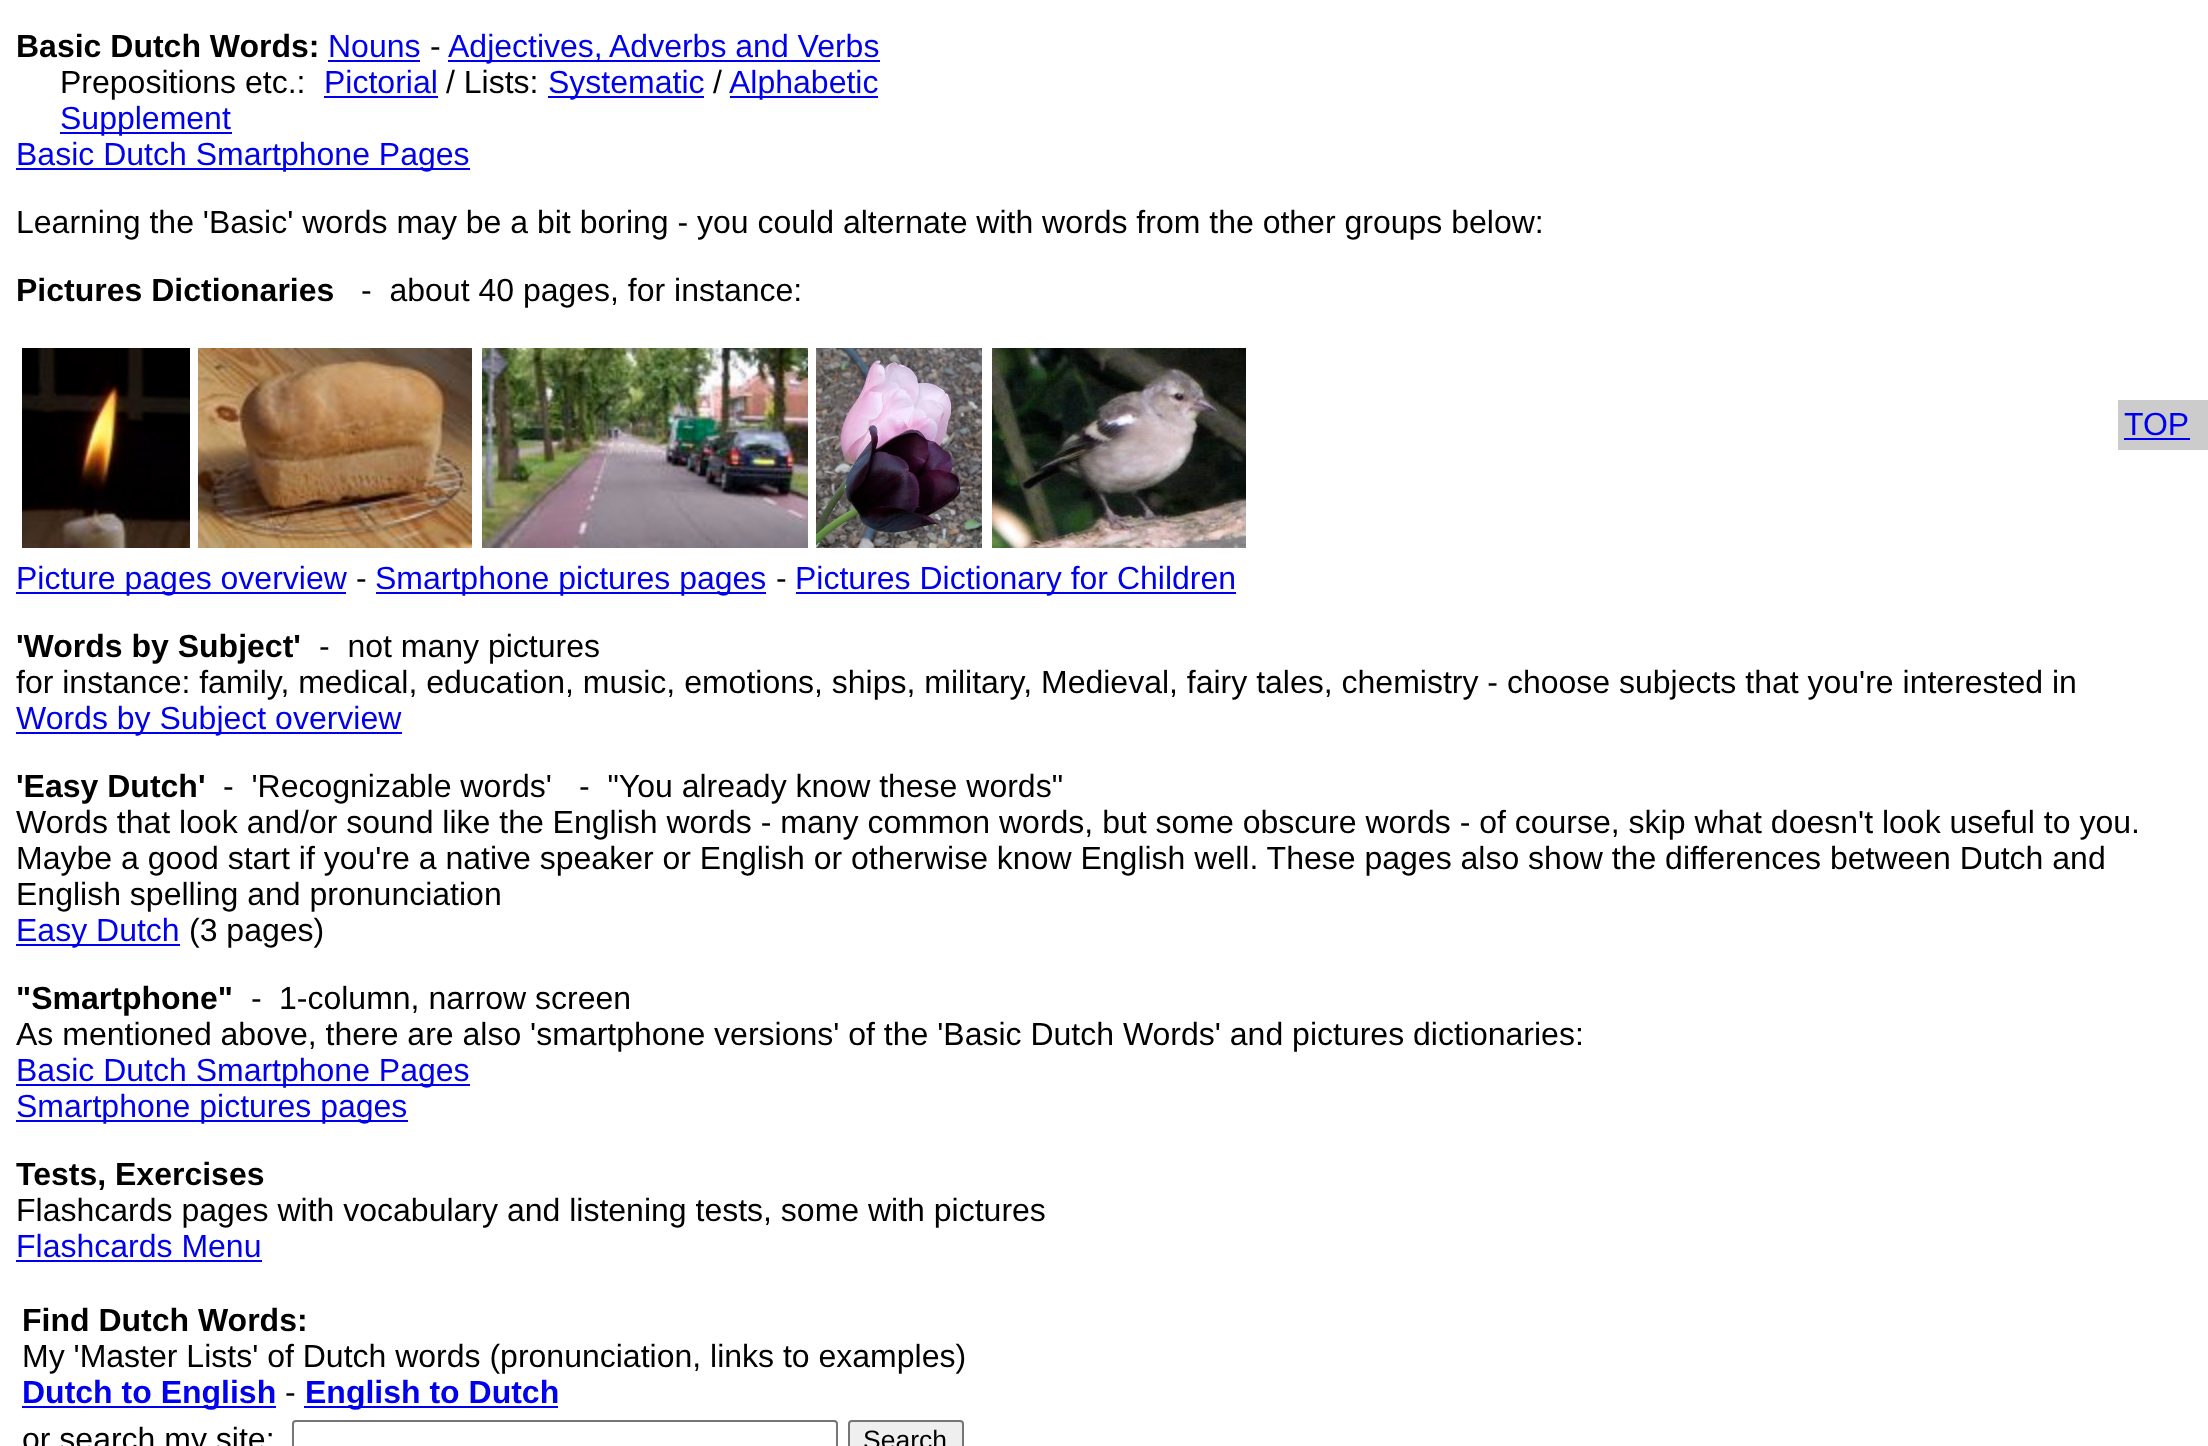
async function draw(canvas) {
  canvas.width = 2208;
  canvas.height = 1446;
  const ctx = canvas.getContext('2d');
  ctx.miterLimit = 4;
  ctx.fontKerning = 'normal';
  function label(s, x, y, font, color) {
    ctx.font = font;
    ctx.fillStyle = color;
    ctx.fillText(s, x, y);
  }
  function rect(x, y, w, h, color) {
    ctx.fillStyle = color;
    ctx.fillRect(x, y, w, h);
  }
  async function image(src, x, y, w, h) {
    const img = new Image();
    img.src = src;
    await img.decode();
    ctx.drawImage(img, x, y, w, h);
  }

  rect(0, 0, 2208, 1446, '#fff');
  label('Basic Dutch Words:', 16, 57, 'bold 32px Liberation Sans', '#000');
  label('Nouns', 328, 57, '32px Liberation Sans', '#00e');
  rect(328, 60, 92, 2, '#00e');
  label('-', 430, 57, '32px Liberation Sans', '#000');
  rect(448, 60, 432, 2, '#00e');
  label('Adjectives,', 448, 57, '32px Liberation Sans', '#00e');
  label('Adverbs and Verbs', 609, 57, '32px Liberation Sans', '#00e');
  label('Prepositions etc.:', 60, 93, '32px Liberation Sans', '#000');
  label('Pictorial', 324, 93, '32px Liberation Sans', '#00e');
  rect(324, 96, 114, 2, '#00e');
  label('/ Lists:', 446, 93, '32px Liberation Sans', '#000');
  rect(548, 96, 156, 2, '#00e');
  label('Systematic', 548, 93, '32px Liberation Sans', '#00e');
  label('/', 713, 93, '32px Liberation Sans', '#000');
  rect(730, 96, 148, 2, '#00e');
  label('Alphabetic', 729, 93, '32px Liberation Sans', '#00e');
  rect(60, 132, 172, 2, '#00e');
  label('Supplement', 60, 129, '32px Liberation Sans', '#00e');
  rect(16, 168, 454, 2, '#00e');
  label('Basic Dutch Smartphone Pages', 16, 165, '32px Liberation Sans', '#00e');
  label('Learning the \'Basic\' words may be a bit boring - you could alternate with words from the other groups below:', 16, 233, '32px Liberation Sans', '#000');
  label('Pictures Dictionaries', 16, 301, 'bold 32px Liberation Sans', '#000');
  label('-  about 40 pages, for instance:', 361, 301, '32px Liberation Sans', '#000');
  await image('assets/img1.png', 22, 348, 168, 200);
  await image('assets/img2.png', 198, 348, 274, 200);
  await image('assets/img3.png', 482, 348, 326, 200);
  await image('assets/img4.png', 816, 348, 166, 200);
  await image('assets/img5.png', 992, 348, 254, 200);
  rect(2118, 400, 90, 50, '#ccc');
  label('TOP', 2124, 435, '32px Liberation Sans', '#00e');
  rect(2124, 438, 66, 2, '#00e');
  rect(16, 592, 330, 2, '#00e');
  label('Picture pages overview', 16, 589, '32px Liberation Sans', '#00e');
  label('-', 356, 589, '32px Liberation Sans', '#000');
  rect(376, 592, 390, 2, '#00e');
  label('Smartphone pictures pages', 375, 589, '32px Liberation Sans', '#00e');
  label('-', 776, 589, '32px Liberation Sans', '#000');
  rect(796, 592, 440, 2, '#00e');
  label('Pictures Dictionary for Children', 795, 589, '32px Liberation Sans', '#00e');
  label('\'Words by Subject\'', 16, 657, 'bold 32px Liberation Sans', '#000');
  label('-  not many pictures', 319, 657, '32px Liberation Sans', '#000');
  label('for instance: family, medical, education, music, emotions, ships, military, Medieval, fairy tales, chemistry - choose subjects that you\'re interested in', 16, 693, '32px Liberation Sans', '#000');
  rect(16, 732, 386, 2, '#00e');
  label('Words by Subject overview', 16, 729, '32px Liberation Sans', '#00e');
  label('\'Easy Dutch\'', 16, 797, 'bold 32px Liberation Sans', '#000');
  label('-  \'Recognizable words\'', 223, 797, '32px Liberation Sans', '#000');
  label('-  "You already know these words"', 579, 797, '32px Liberation Sans', '#000');
  label('Words that look and/or sound like the English words - many common words, but some obscure words - of course, skip what doesn\'t look useful to you.', 16, 833, '32px Liberation Sans', '#000');
  label('Maybe a good start if you\'re a native speaker or English or otherwise know English well. These pages also show the differences between Dutch and', 16, 869, '32px Liberation Sans', '#000');
  label('English spelling and pronunciation', 16, 905, '32px Liberation Sans', '#000');
  rect(16, 944, 164, 2, '#00e');
  label('Easy Dutch', 16, 941, '32px Liberation Sans', '#00e');
  label('(3 pages)', 189, 941, '32px Liberation Sans', '#000');
  label('"Smartphone"', 16, 1009, 'bold 32px Liberation Sans', '#000');
  label('-', 251, 1009, '32px Liberation Sans', '#000');
  label('1-column, narrow screen', 279, 1009, '32px Liberation Sans', '#000');
  label('As mentioned above, there are also \'smartphone versions\' of the \'Basic Dutch Words\' and pictures dictionaries:', 16, 1045, '32px Liberation Sans', '#000');
  rect(16, 1084, 454, 2, '#00e');
  label('Basic Dutch Smartphone Pages', 16, 1081, '32px Liberation Sans', '#00e');
  rect(16, 1120, 392, 2, '#00e');
  label('Smartphone pictures pages', 16, 1117, '32px Liberation Sans', '#00e');
  label('Tests, Exercises', 16, 1185, 'bold 32px Liberation Sans', '#000');
  label('Flashcards pages with vocabulary and listening tests, some with pictures', 16, 1221, '32px Liberation Sans', '#000');
  label('Flashcards Menu', 16, 1257, '32px Liberation Sans', '#00e');
  rect(16, 1260, 246, 2, '#00e');
  label('Find Dutch Words:', 22, 1331, 'bold 32px Liberation Sans', '#000');
  label('My \'Master Lists\' of Dutch words (pronunciation, links to examples)', 22, 1367, '32px Liberation Sans', '#000');
  rect(22, 1406, 254, 2, '#00e');
  label('Dutch to English', 22, 1403, 'bold 32px Liberation Sans', '#00e');
  label('-', 285, 1403, '32px Liberation Sans', '#000');
  rect(304, 1406, 254, 2, '#00e');
  label('English to Dutch', 305, 1403, 'bold 32px Liberation Sans', '#00e');
  label('or search my site:', 22, 1450, '32px Liberation Sans', '#000');
  ctx.beginPath();
  ctx.roundRect(293, 1421, 544, 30, 3);
  ctx.strokeStyle = '#767676';
  ctx.lineWidth = 2;
  ctx.stroke();
  ctx.fillStyle = '#efefef';
  ctx.beginPath();
  ctx.roundRect(849, 1421, 114, 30, 3);
  ctx.fill();
  ctx.stroke();
  label('Search', 863, 1449, '26.5px Liberation Sans', '#000');
}

draw(document.querySelector('canvas'));
